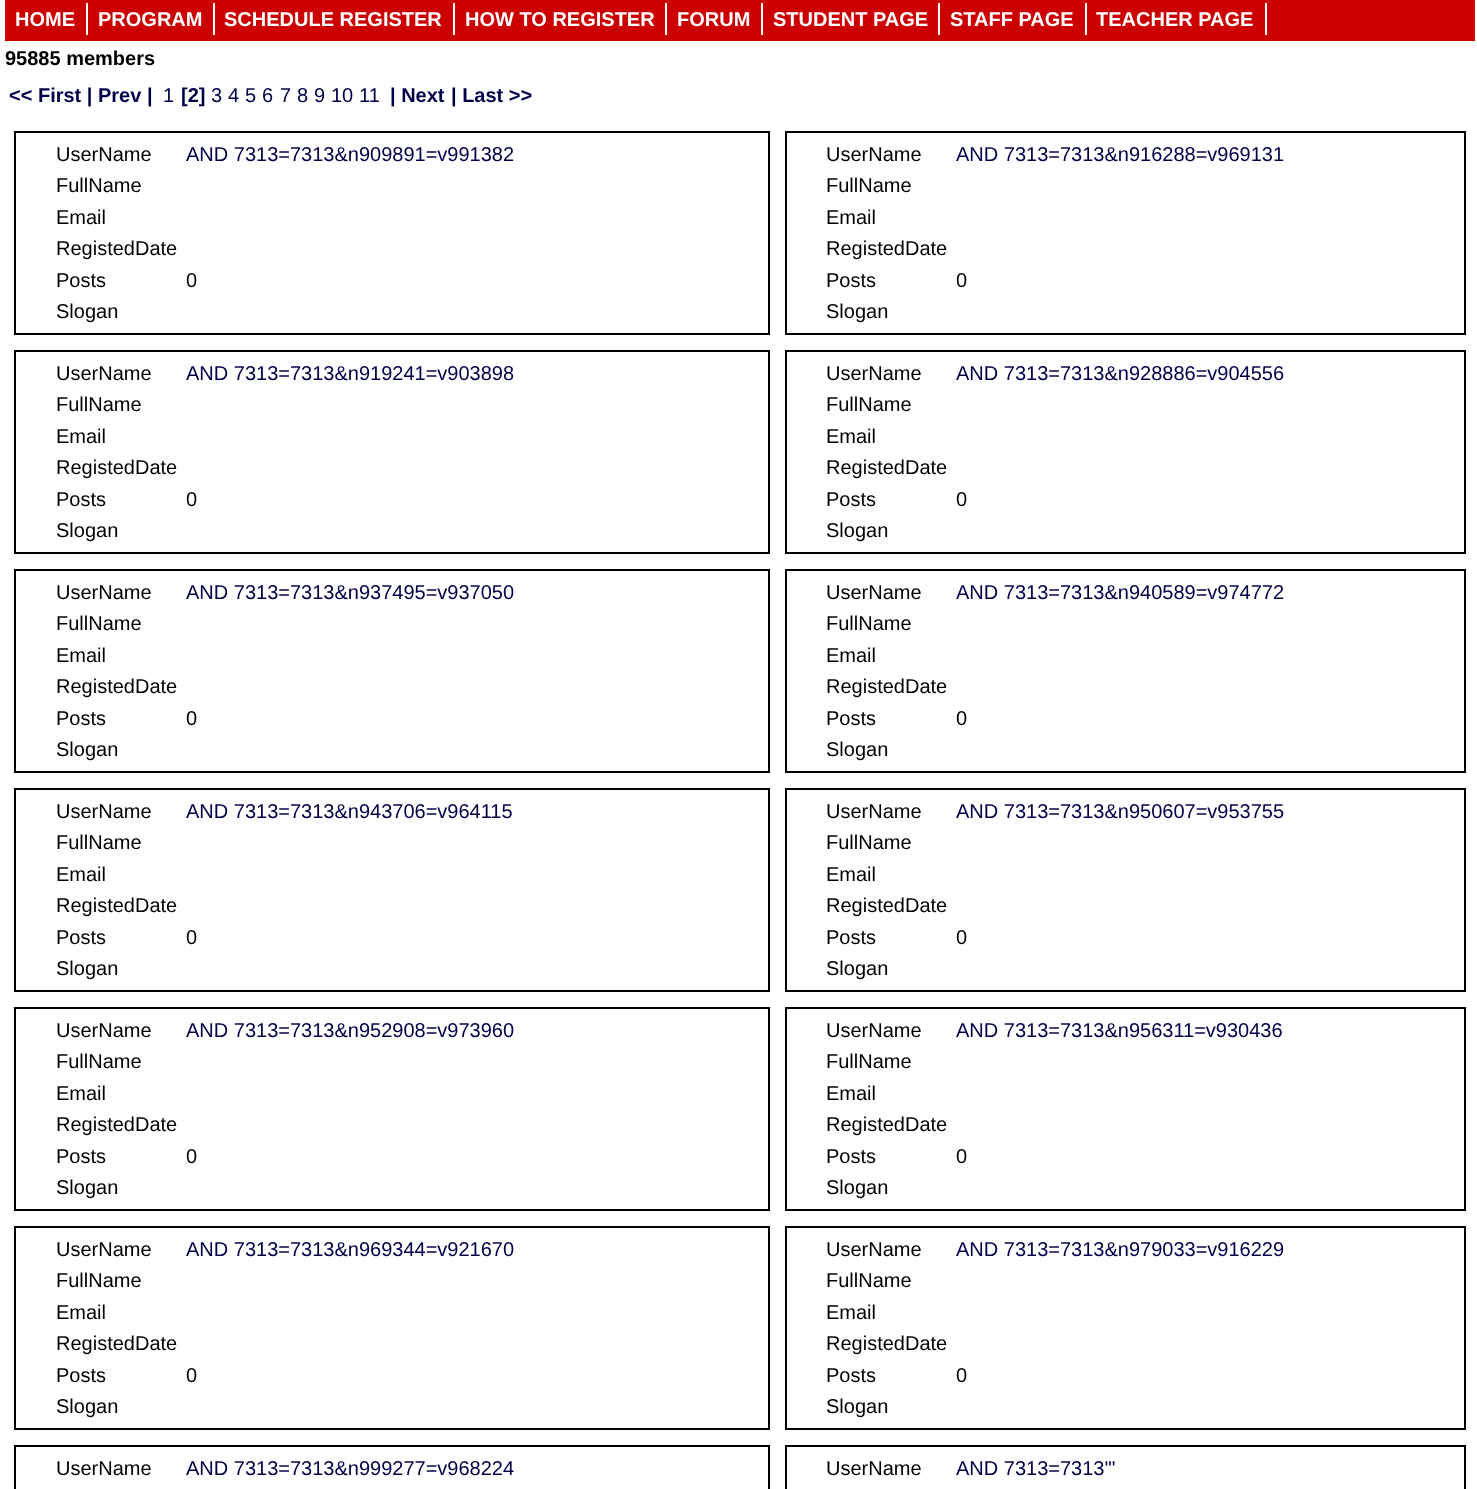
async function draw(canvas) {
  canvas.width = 1477;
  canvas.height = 1489;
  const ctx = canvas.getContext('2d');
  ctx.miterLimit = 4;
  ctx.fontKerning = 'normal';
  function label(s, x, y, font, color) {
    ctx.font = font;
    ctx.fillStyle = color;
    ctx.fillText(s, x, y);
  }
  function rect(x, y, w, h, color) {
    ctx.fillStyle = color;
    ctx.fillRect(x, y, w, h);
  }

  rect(0, 0, 1477, 1489, '#fff');
  rect(5, 0, 1470, 41, '#c00');
  rect(86, 3, 2, 32, '#fff');
  label('HOME', 15, 26, 'bold 20px Liberation Sans', '#fff');
  rect(213, 3, 2, 32, '#fff');
  label('PROGRAM', 98, 26, 'bold 20px Liberation Sans', '#fff');
  rect(453, 3, 2, 32, '#fff');
  label('SCHEDULE REGISTER', 224, 26, 'bold 20px Liberation Sans', '#fff');
  rect(665, 3, 2, 32, '#fff');
  label('HOW TO REGISTER', 465, 26, 'bold 20px Liberation Sans', '#fff');
  rect(761, 3, 2, 32, '#fff');
  label('FORUM', 677, 26, 'bold 20px Liberation Sans', '#fff');
  rect(938, 3, 2, 32, '#fff');
  label('STUDENT PAGE', 773, 26, 'bold 20px Liberation Sans', '#fff');
  rect(1085, 3, 2, 32, '#fff');
  label('STAFF PAGE', 950, 26, 'bold 20px Liberation Sans', '#fff');
  rect(1265, 3, 2, 32, '#fff');
  label('TEACHER PAGE', 1096, 26, 'bold 20px Liberation Sans', '#fff');
  label('95885 members', 5, 65, 'bold 20px Liberation Sans', '#000');
  label('<< First |', 9, 102, 'bold 20px Liberation Sans', '#000049');
  label('Prev |', 98, 102, 'bold 20px Liberation Sans', '#000049');
  label('1', 163, 102, '20px Liberation Sans', '#000049');
  label('[2]', 181, 102, 'bold 20px Liberation Sans', '#000049');
  label('3', 211, 102, '20px Liberation Sans', '#000049');
  label('4', 228, 102, '20px Liberation Sans', '#000049');
  label('5', 245, 102, '20px Liberation Sans', '#000049');
  label('6', 262, 102, '20px Liberation Sans', '#000049');
  label('7', 280, 102, '20px Liberation Sans', '#000049');
  label('8', 297, 102, '20px Liberation Sans', '#000049');
  label('9', 314, 102, '20px Liberation Sans', '#000049');
  label('10', 331, 102, '20px Liberation Sans', '#000049');
  label('11', 359, 102, '20px Liberation Sans', '#000049');
  label('| Next', 390, 102, 'bold 20px Liberation Sans', '#000049');
  label('| Last >>', 451, 102, 'bold 20px Liberation Sans', '#000049');
  ctx.strokeStyle = '#000';
  ctx.lineWidth = 2;
  ctx.strokeRect(15, 132, 754, 202);
  label('UserName', 56, 161, '20px Liberation Sans', '#000');
  label('AND 7313=7313&n909891=v991382', 186, 161, '20px Liberation Sans', '#000049');
  label('FullName', 56, 192, '20px Liberation Sans', '#000');
  label('Email', 56, 224, '20px Liberation Sans', '#000');
  label('RegistedDate', 56, 255, '20px Liberation Sans', '#000');
  label('Posts', 56, 287, '20px Liberation Sans', '#000');
  label('0', 186, 287, '20px Liberation Sans', '#000');
  label('Slogan', 56, 318, '20px Liberation Sans', '#000');
  ctx.strokeRect(786, 132, 679, 202);
  label('UserName', 826, 161, '20px Liberation Sans', '#000');
  label('AND 7313=7313&n916288=v969131', 956, 161, '20px Liberation Sans', '#000049');
  label('FullName', 826, 192, '20px Liberation Sans', '#000');
  label('Email', 826, 224, '20px Liberation Sans', '#000');
  label('RegistedDate', 826, 255, '20px Liberation Sans', '#000');
  label('Posts', 826, 287, '20px Liberation Sans', '#000');
  label('0', 956, 287, '20px Liberation Sans', '#000');
  label('Slogan', 826, 318, '20px Liberation Sans', '#000');
  ctx.strokeRect(15, 351, 754, 202);
  label('UserName', 56, 380, '20px Liberation Sans', '#000');
  label('AND 7313=7313&n919241=v903898', 186, 380, '20px Liberation Sans', '#000049');
  label('FullName', 56, 411, '20px Liberation Sans', '#000');
  label('Email', 56, 443, '20px Liberation Sans', '#000');
  label('RegistedDate', 56, 474, '20px Liberation Sans', '#000');
  label('Posts', 56, 506, '20px Liberation Sans', '#000');
  label('0', 186, 506, '20px Liberation Sans', '#000');
  label('Slogan', 56, 537, '20px Liberation Sans', '#000');
  ctx.strokeRect(786, 351, 679, 202);
  label('UserName', 826, 380, '20px Liberation Sans', '#000');
  label('AND 7313=7313&n928886=v904556', 956, 380, '20px Liberation Sans', '#000049');
  label('FullName', 826, 411, '20px Liberation Sans', '#000');
  label('Email', 826, 443, '20px Liberation Sans', '#000');
  label('RegistedDate', 826, 474, '20px Liberation Sans', '#000');
  label('Posts', 826, 506, '20px Liberation Sans', '#000');
  label('0', 956, 506, '20px Liberation Sans', '#000');
  label('Slogan', 826, 537, '20px Liberation Sans', '#000');
  ctx.strokeRect(15, 570, 754, 202);
  label('UserName', 56, 599, '20px Liberation Sans', '#000');
  label('AND 7313=7313&n937495=v937050', 186, 599, '20px Liberation Sans', '#000049');
  label('FullName', 56, 630, '20px Liberation Sans', '#000');
  label('Email', 56, 662, '20px Liberation Sans', '#000');
  label('RegistedDate', 56, 693, '20px Liberation Sans', '#000');
  label('Posts', 56, 725, '20px Liberation Sans', '#000');
  label('0', 186, 725, '20px Liberation Sans', '#000');
  label('Slogan', 56, 756, '20px Liberation Sans', '#000');
  ctx.strokeRect(786, 570, 679, 202);
  label('UserName', 826, 599, '20px Liberation Sans', '#000');
  label('AND 7313=7313&n940589=v974772', 956, 599, '20px Liberation Sans', '#000049');
  label('FullName', 826, 630, '20px Liberation Sans', '#000');
  label('Email', 826, 662, '20px Liberation Sans', '#000');
  label('RegistedDate', 826, 693, '20px Liberation Sans', '#000');
  label('Posts', 826, 725, '20px Liberation Sans', '#000');
  label('0', 956, 725, '20px Liberation Sans', '#000');
  label('Slogan', 826, 756, '20px Liberation Sans', '#000');
  ctx.strokeRect(15, 789, 754, 202);
  label('UserName', 56, 818, '20px Liberation Sans', '#000');
  label('AND 7313=7313&n943706=v964115', 186, 818, '20px Liberation Sans', '#000049');
  label('FullName', 56, 849, '20px Liberation Sans', '#000');
  label('Email', 56, 881, '20px Liberation Sans', '#000');
  label('RegistedDate', 56, 912, '20px Liberation Sans', '#000');
  label('Posts', 56, 944, '20px Liberation Sans', '#000');
  label('0', 186, 944, '20px Liberation Sans', '#000');
  label('Slogan', 56, 975, '20px Liberation Sans', '#000');
  ctx.strokeRect(786, 789, 679, 202);
  label('UserName', 826, 818, '20px Liberation Sans', '#000');
  label('AND 7313=7313&n950607=v953755', 956, 818, '20px Liberation Sans', '#000049');
  label('FullName', 826, 849, '20px Liberation Sans', '#000');
  label('Email', 826, 881, '20px Liberation Sans', '#000');
  label('RegistedDate', 826, 912, '20px Liberation Sans', '#000');
  label('Posts', 826, 944, '20px Liberation Sans', '#000');
  label('0', 956, 944, '20px Liberation Sans', '#000');
  label('Slogan', 826, 975, '20px Liberation Sans', '#000');
  ctx.strokeRect(15, 1008, 754, 202);
  label('UserName', 56, 1037, '20px Liberation Sans', '#000');
  label('AND 7313=7313&n952908=v973960', 186, 1037, '20px Liberation Sans', '#000049');
  label('FullName', 56, 1068, '20px Liberation Sans', '#000');
  label('Email', 56, 1100, '20px Liberation Sans', '#000');
  label('RegistedDate', 56, 1131, '20px Liberation Sans', '#000');
  label('Posts', 56, 1163, '20px Liberation Sans', '#000');
  label('0', 186, 1163, '20px Liberation Sans', '#000');
  label('Slogan', 56, 1194, '20px Liberation Sans', '#000');
  ctx.strokeRect(786, 1008, 679, 202);
  label('UserName', 826, 1037, '20px Liberation Sans', '#000');
  label('AND 7313=7313&n956311=v930436', 956, 1037, '20px Liberation Sans', '#000049');
  label('FullName', 826, 1068, '20px Liberation Sans', '#000');
  label('Email', 826, 1100, '20px Liberation Sans', '#000');
  label('RegistedDate', 826, 1131, '20px Liberation Sans', '#000');
  label('Posts', 826, 1163, '20px Liberation Sans', '#000');
  label('0', 956, 1163, '20px Liberation Sans', '#000');
  label('Slogan', 826, 1194, '20px Liberation Sans', '#000');
  ctx.strokeRect(15, 1227, 754, 202);
  label('UserName', 56, 1256, '20px Liberation Sans', '#000');
  label('AND 7313=7313&n969344=v921670', 186, 1256, '20px Liberation Sans', '#000049');
  label('FullName', 56, 1287, '20px Liberation Sans', '#000');
  label('Email', 56, 1319, '20px Liberation Sans', '#000');
  label('RegistedDate', 56, 1350, '20px Liberation Sans', '#000');
  label('Posts', 56, 1382, '20px Liberation Sans', '#000');
  label('0', 186, 1382, '20px Liberation Sans', '#000');
  label('Slogan', 56, 1413, '20px Liberation Sans', '#000');
  ctx.strokeRect(786, 1227, 679, 202);
  label('UserName', 826, 1256, '20px Liberation Sans', '#000');
  label('AND 7313=7313&n979033=v916229', 956, 1256, '20px Liberation Sans', '#000049');
  label('FullName', 826, 1287, '20px Liberation Sans', '#000');
  label('Email', 826, 1319, '20px Liberation Sans', '#000');
  label('RegistedDate', 826, 1350, '20px Liberation Sans', '#000');
  label('Posts', 826, 1382, '20px Liberation Sans', '#000');
  label('0', 956, 1382, '20px Liberation Sans', '#000');
  label('Slogan', 826, 1413, '20px Liberation Sans', '#000');
  ctx.strokeRect(15, 1446, 754, 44);
  label('UserName', 56, 1475, '20px Liberation Sans', '#000');
  label('AND 7313=7313&n999277=v968224', 186, 1475, '20px Liberation Sans', '#000049');
  ctx.strokeRect(786, 1446, 679, 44);
  label('UserName', 826, 1475, '20px Liberation Sans', '#000');
  label('AND 7313=7313\'"', 956, 1475, '20px Liberation Sans', '#000049');
}

draw(document.querySelector('canvas'));
